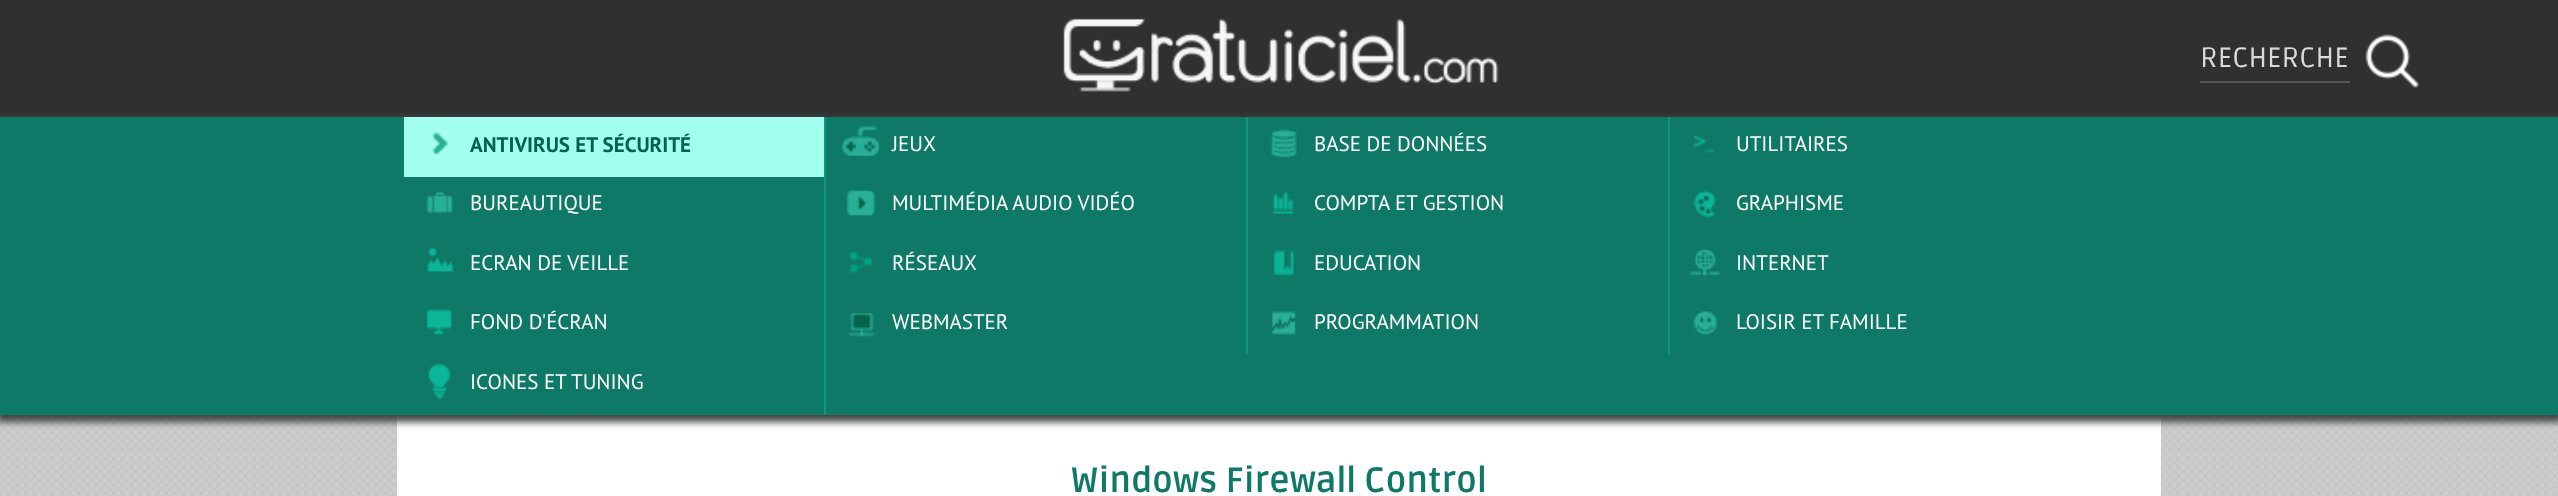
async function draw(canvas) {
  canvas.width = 2558;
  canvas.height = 496;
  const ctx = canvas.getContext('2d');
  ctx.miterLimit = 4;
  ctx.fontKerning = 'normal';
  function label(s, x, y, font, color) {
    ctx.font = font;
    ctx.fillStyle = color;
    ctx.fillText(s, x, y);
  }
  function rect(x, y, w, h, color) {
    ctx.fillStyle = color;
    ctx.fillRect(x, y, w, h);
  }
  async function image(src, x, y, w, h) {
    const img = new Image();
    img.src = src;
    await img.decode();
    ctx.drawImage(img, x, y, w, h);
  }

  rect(0, 0, 2558, 496, '#fff');
  rect(0, 0, 2558, 117, '#313030');
  await image('assets/img1.png', 1063, 18, 436, 74);
  rect(2200, 81, 150, 2, '#575757');
  label('RECHERCHE', 2200, 67, '28px Ruda', '#dadada');
  await image('assets/img2.png', 2365, 34, 54, 54);
  await image('assets/img20.png', 0, 415, 2558, 81);
  rect(397, 415, 1764, 81, '#fff');
  ctx.fillStyle = '#444';
  ctx.filter = 'blur(3.5px)';
  ctx.beginPath();
  ctx.rect(-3, 117, 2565, 305);
  ctx.fill();
  ctx.filter = 'none';
  rect(0, 117, 2558, 298, '#0e7966');
  rect(824, 117, 2, 298, '#08997f');
  rect(404, 117, 420, 60, '#a3ffee');
  await image('assets/img3.png', 432, 132, 17, 23);
  label('ANTIVIRUS ET SÉCURITÉ', 470, 152, 'bold 21px PT Sans', '#006351');
  await image('assets/img4.png', 426, 192, 28, 22);
  label('BUREAUTIQUE', 470, 210, '21px PT Sans', '#fff');
  await image('assets/img5.png', 426, 248, 28, 24);
  label('ECRAN DE VEILLE', 470, 270, '21px PT Sans', '#fff');
  await image('assets/img6.png', 426, 309, 26, 26);
  label('FOND D\'ÉCRAN', 470, 329, '21px PT Sans', '#fff');
  await image('assets/img7.png', 428, 363, 23, 37);
  label('ICONES ET TUNING', 470, 389, '21px PT Sans', '#fff');
  rect(1246, 117, 2, 238, '#08997f');
  await image('assets/img8.png', 841, 125, 40, 32);
  label('JEUX', 892, 151, '21px PT Sans', '#fff');
  await image('assets/img9.png', 846, 190, 30, 26);
  label('MULTIMÉDIA AUDIO VIDÉO', 892, 210, '21px PT Sans', '#fff');
  await image('assets/img10.png', 850, 251, 22, 23);
  label('RÉSEAUX', 892, 270, '21px PT Sans', '#fff');
  await image('assets/img11.png', 848, 313, 27, 25);
  label('WEBMASTER', 892, 329, '21px PT Sans', '#fff');
  rect(1668, 117, 2, 238, '#08997f');
  await image('assets/img12.png', 1270, 129, 27, 29);
  label('BASE DE DONNÉES', 1314, 151, '21px PT Sans', '#fff');
  await image('assets/img13.png', 1272, 192, 22, 22);
  label('COMPTA ET GESTION', 1314, 210, '21px PT Sans', '#fff');
  await image('assets/img14.png', 1273, 250, 21, 26);
  label('EDUCATION', 1314, 270, '21px PT Sans', '#fff');
  await image('assets/img15.png', 1272, 311, 24, 24);
  label('PROGRAMMATION', 1314, 329, '21px PT Sans', '#fff');
  await image('assets/img16.png', 1693, 134, 22, 19);
  label('UTILITAIRES', 1736, 151, '21px PT Sans', '#fff');
  await image('assets/img17.png', 1693, 190, 23, 28);
  label('GRAPHISME', 1736, 210, '21px PT Sans', '#fff');
  await image('assets/img18.png', 1690, 248, 31, 29);
  label('INTERNET', 1736, 270, '21px PT Sans', '#fff');
  await image('assets/img19.png', 1693, 311, 25, 24);
  label('LOISIR ET FAMILLE', 1736, 329, '21px PT Sans', '#fff');
  label('Windows Firewall Control', 1071, 492, 'bold 35px Ruda', '#0e7966');
}

draw(document.querySelector('canvas'));
